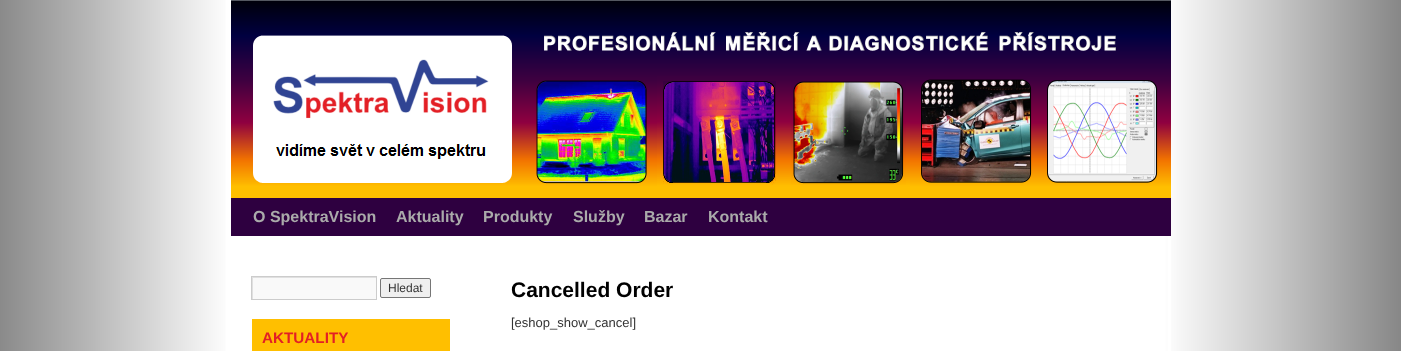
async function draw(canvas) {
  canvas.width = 1401;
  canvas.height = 351;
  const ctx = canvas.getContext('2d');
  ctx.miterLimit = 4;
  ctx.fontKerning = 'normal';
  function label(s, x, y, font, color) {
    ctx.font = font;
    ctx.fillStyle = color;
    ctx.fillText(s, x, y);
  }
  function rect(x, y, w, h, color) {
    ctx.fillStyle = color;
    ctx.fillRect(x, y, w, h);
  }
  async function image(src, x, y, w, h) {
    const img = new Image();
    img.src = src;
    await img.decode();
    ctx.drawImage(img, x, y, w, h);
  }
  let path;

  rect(0, 0, 1401, 351, '#fff');
  await image('assets/img1.png', 0, 0, 1401, 351);
  rect(1168, 236, 3, 115, '#fff');
  await image('assets/img2.png', 231, 0, 940, 198);
  rect(231, 198, 940, 38, '#2e0040');
  label('O SpektraVision', 253, 222, 'bold 16px Liberation Sans', '#aaa');
  label('Aktuality', 396, 222, 'bold 16px Liberation Sans', '#aaa');
  label('Produkty', 483, 222, 'bold 16px Liberation Sans', '#aaa');
  label('Služby', 573, 222, 'bold 16px Liberation Sans', '#aaa');
  label('Bazar', 644, 222, 'bold 16px Liberation Sans', '#aaa');
  label('Kontakt', 708, 222, 'bold 16px Liberation Sans', '#aaa');
  rect(253, 278, 123, 21, '#f9f9f9');
  ctx.save();
  ctx.beginPath();
  ctx.rect(252, 277, 124, 22);
  ctx.clip();
  ctx.fillStyle = '#e0e0e0';
  path = new Path2D('M153 178H475V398H153ZM253 278H377V300H253Z');
  ctx.fill(path, 'evenodd');
  ctx.restore();
  ctx.strokeStyle = '#ccc';
  ctx.strokeRect(251.5, 276.5, 125, 23);
  ctx.fillStyle = '#efefef';
  ctx.beginPath();
  ctx.roundRect(380.5, 278.5, 50, 19, 1.5);
  ctx.fill();
  ctx.strokeStyle = '#767676';
  ctx.stroke();
  label('Hledat', 388, 292, '12px Liberation Sans', '#333');
  rect(252, 319, 198, 32, '#ffbf00');
  label('AKTUALITY', 262, 343, 'bold 15.25px Liberation Sans', '#e31f25');
  label('Cancelled Order', 511, 297, 'bold 21px Liberation Sans', '#000');
  label('[eshop_show_cancel]', 511, 327, '13px Liberation Sans', '#333');
}

draw(document.querySelector('canvas'));
